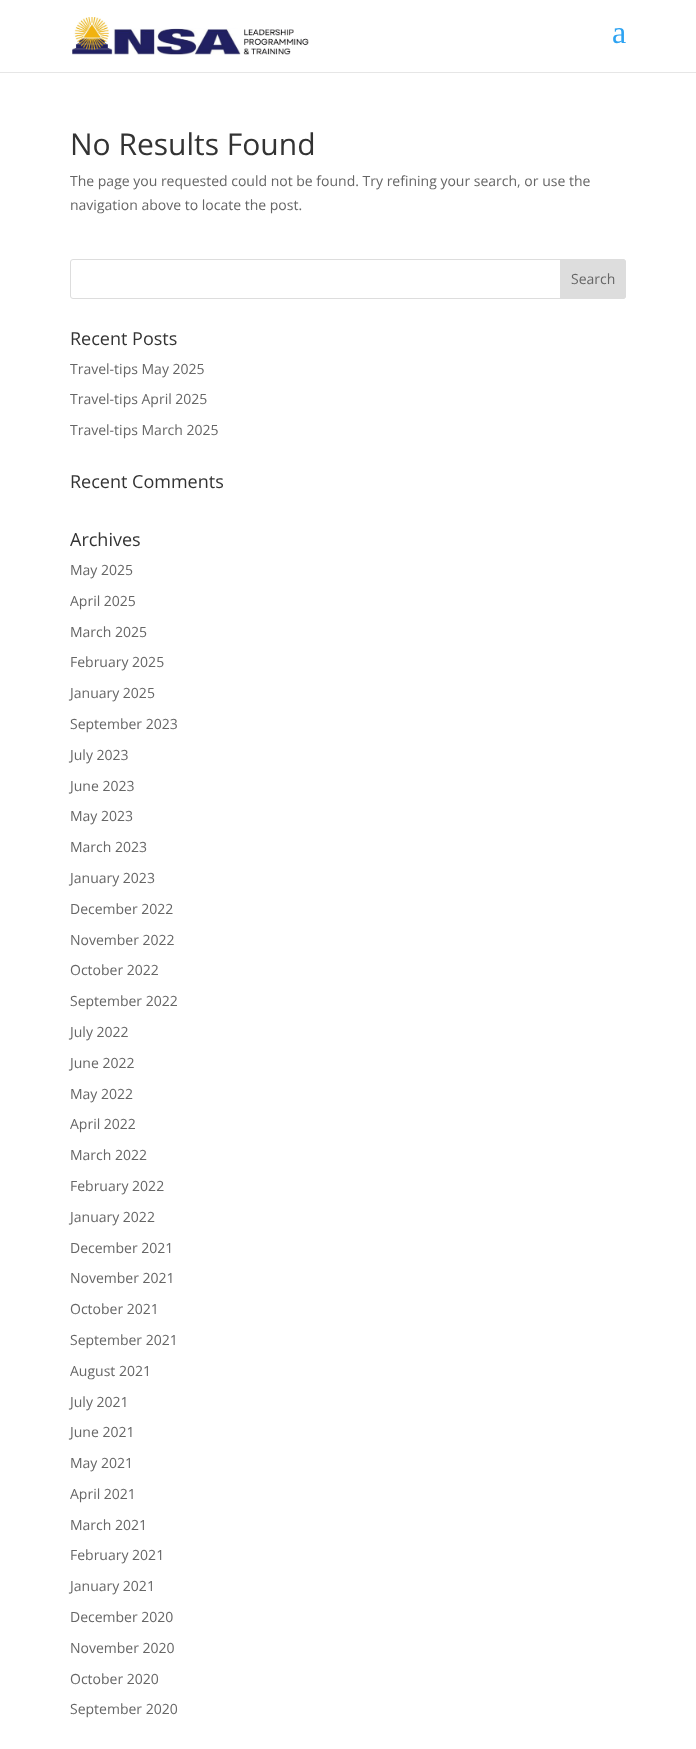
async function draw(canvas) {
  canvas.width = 696;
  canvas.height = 1749;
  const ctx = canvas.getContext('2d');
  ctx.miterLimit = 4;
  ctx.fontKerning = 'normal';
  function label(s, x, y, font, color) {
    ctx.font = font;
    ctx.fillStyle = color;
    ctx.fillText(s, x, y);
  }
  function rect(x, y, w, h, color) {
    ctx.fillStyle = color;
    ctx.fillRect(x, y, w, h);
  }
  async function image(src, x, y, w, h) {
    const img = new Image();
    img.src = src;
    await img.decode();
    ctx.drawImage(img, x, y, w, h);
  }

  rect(0, 0, 696, 1749, '#fff');
  rect(0, 72, 696, 1, '#e6e6e6');
  await image('assets/img1.png', 72, 17, 237, 38);
  label('a', 612, 43, '32px Liberation Serif', '#2ea3f2');
  label('No Results Found', 70, 155, '30px Open Sans', '#333');
  label('The page you requested could not be found. Try refining your search, or use the', 70, 186, '14px Open Sans', '#666');
  label('navigation above to locate the post.', 70, 210, '14px Open Sans', '#666');
  ctx.beginPath();
  ctx.roundRect(70.5, 259.5, 555, 39, 2.5);
  ctx.strokeStyle = '#ddd';
  ctx.stroke();
  ctx.fillStyle = '#ddd';
  ctx.beginPath();
  ctx.roundRect(560.5, 259.5, 65, 39, [0, 2.5, 2.5, 0]);
  ctx.fill();
  ctx.stroke();
  label('Search', 571, 284, '14px Open Sans', '#666');
  label('Recent Posts', 70, 345, '18px Open Sans', '#333');
  label('Travel-tips May 2025', 70, 374, '14px Open Sans', '#666');
  label('Travel-tips April 2025', 70, 404, '14px Open Sans', '#666');
  label('Travel-tips March 2025', 70, 435, '14px Open Sans', '#666');
  label('Recent Comments', 70, 488, '18px Open Sans', '#333');
  label('Archives', 70, 546, '18px Open Sans', '#333');
  label('May 2025', 70, 575, '14px Open Sans', '#666');
  label('April 2025', 70, 606, '14px Open Sans', '#666');
  label('March 2025', 70, 637, '14px Open Sans', '#666');
  label('February 2025', 70, 667, '14px Open Sans', '#666');
  label('January 2025', 70, 698, '14px Open Sans', '#666');
  label('September 2023', 70, 729, '14px Open Sans', '#666');
  label('July 2023', 70, 760, '14px Open Sans', '#666');
  label('June 2023', 70, 791, '14px Open Sans', '#666');
  label('May 2023', 70, 821, '14px Open Sans', '#666');
  label('March 2023', 70, 852, '14px Open Sans', '#666');
  label('January 2023', 70, 883, '14px Open Sans', '#666');
  label('December 2022', 70, 914, '14px Open Sans', '#666');
  label('November 2022', 70, 945, '14px Open Sans', '#666');
  label('October 2022', 70, 975, '14px Open Sans', '#666');
  label('September 2022', 70, 1006, '14px Open Sans', '#666');
  label('July 2022', 70, 1037, '14px Open Sans', '#666');
  label('June 2022', 70, 1068, '14px Open Sans', '#666');
  label('May 2022', 70, 1099, '14px Open Sans', '#666');
  label('April 2022', 70, 1129, '14px Open Sans', '#666');
  label('March 2022', 70, 1160, '14px Open Sans', '#666');
  label('February 2022', 70, 1191, '14px Open Sans', '#666');
  label('January 2022', 70, 1222, '14px Open Sans', '#666');
  label('December 2021', 70, 1253, '14px Open Sans', '#666');
  label('November 2021', 70, 1283, '14px Open Sans', '#666');
  label('October 2021', 70, 1314, '14px Open Sans', '#666');
  label('September 2021', 70, 1345, '14px Open Sans', '#666');
  label('August 2021', 70, 1376, '14px Open Sans', '#666');
  label('July 2021', 70, 1407, '14px Open Sans', '#666');
  label('June 2021', 70, 1437, '14px Open Sans', '#666');
  label('May 2021', 70, 1468, '14px Open Sans', '#666');
  label('April 2021', 70, 1499, '14px Open Sans', '#666');
  label('March 2021', 70, 1530, '14px Open Sans', '#666');
  label('February 2021', 70, 1560, '14px Open Sans', '#666');
  label('January 2021', 70, 1591, '14px Open Sans', '#666');
  label('December 2020', 70, 1622, '14px Open Sans', '#666');
  label('November 2020', 70, 1653, '14px Open Sans', '#666');
  label('October 2020', 70, 1684, '14px Open Sans', '#666');
  label('September 2020', 70, 1714, '14px Open Sans', '#666');
}

draw(document.querySelector('canvas'));
